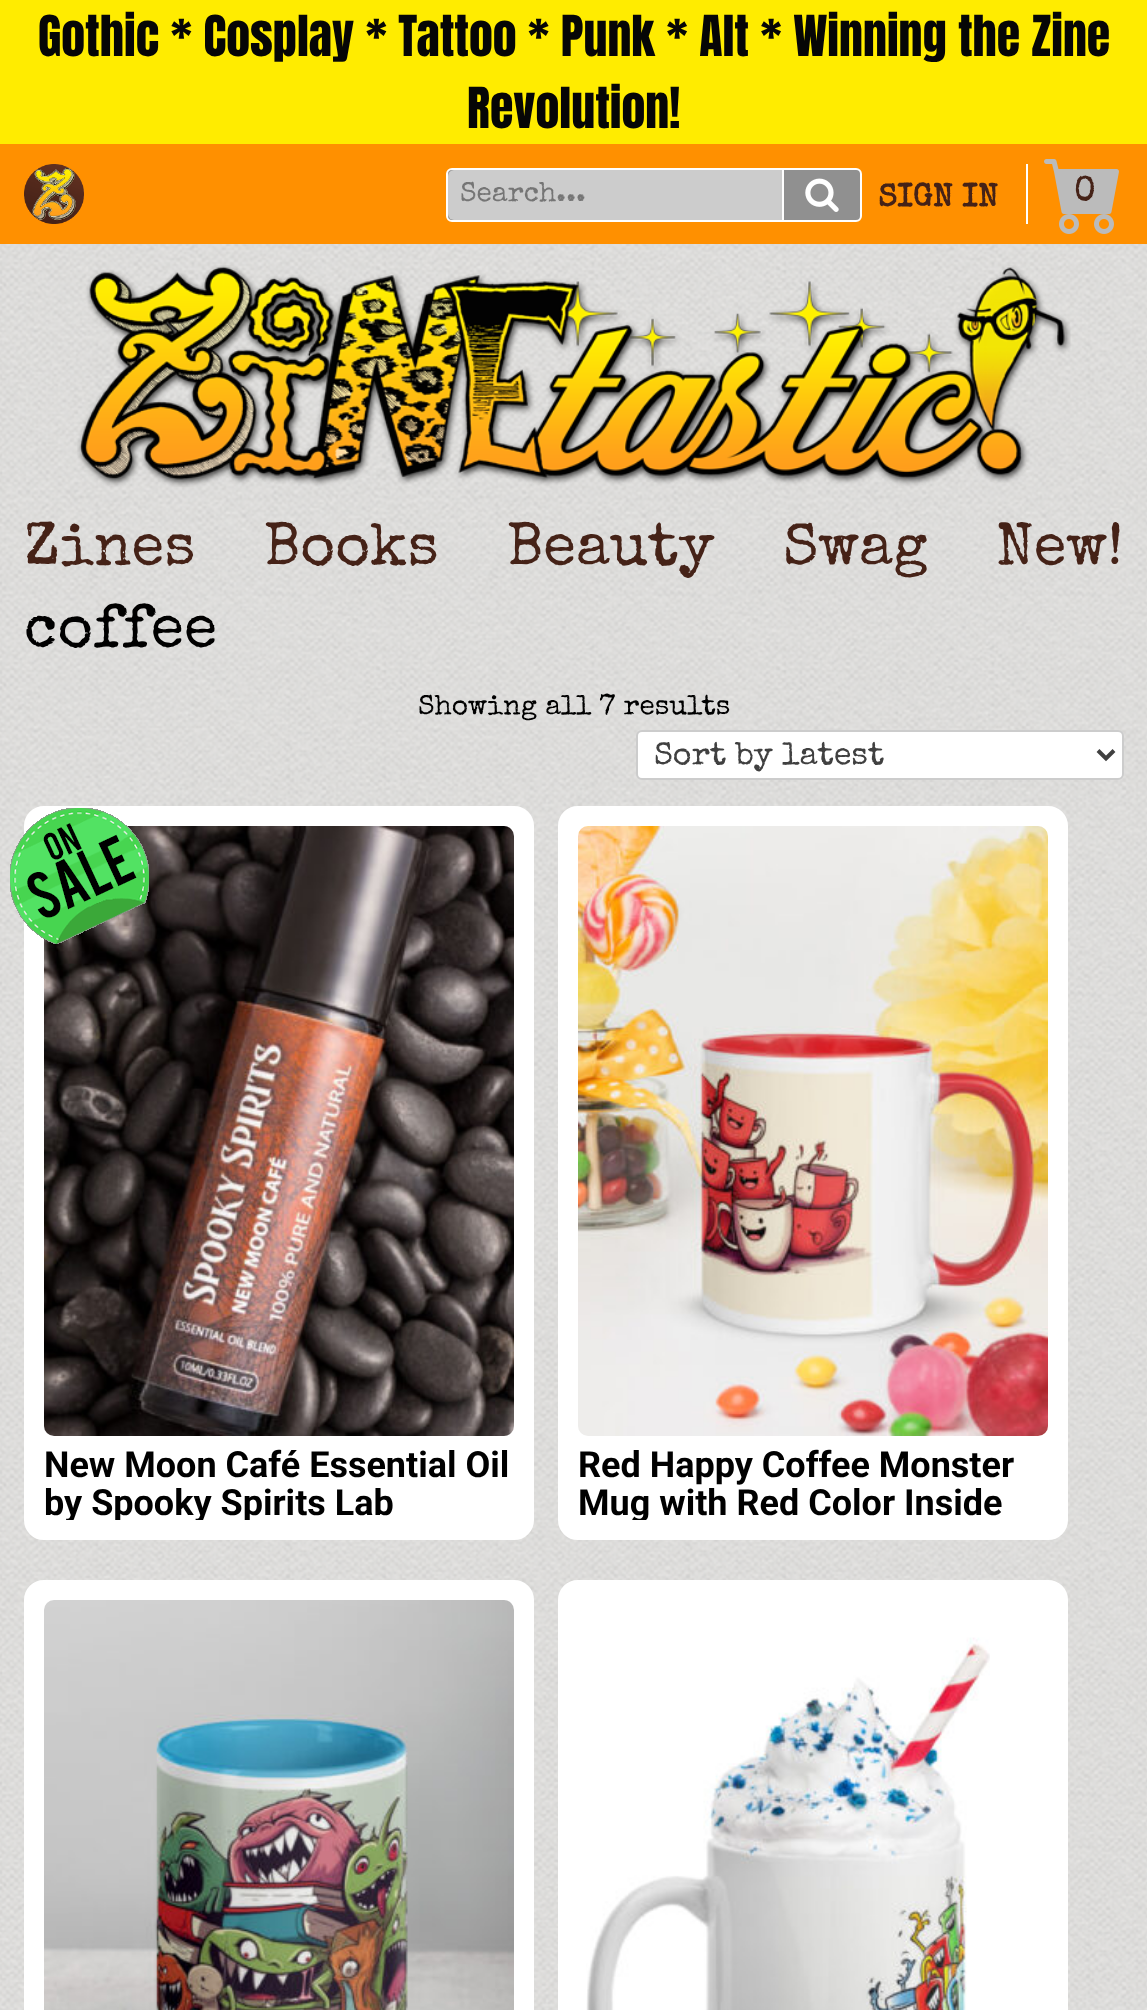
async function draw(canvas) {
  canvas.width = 1147;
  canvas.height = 2010;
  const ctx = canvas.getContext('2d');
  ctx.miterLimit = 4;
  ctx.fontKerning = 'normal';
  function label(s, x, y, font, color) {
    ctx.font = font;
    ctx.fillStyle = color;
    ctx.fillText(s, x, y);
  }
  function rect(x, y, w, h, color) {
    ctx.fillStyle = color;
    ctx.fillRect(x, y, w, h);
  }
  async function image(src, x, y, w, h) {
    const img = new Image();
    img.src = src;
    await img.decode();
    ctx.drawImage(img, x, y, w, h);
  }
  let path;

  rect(0, 0, 1147, 2010, '#fff');
  await image('assets/img1.png', 0, 244, 1147, 1766);
  rect(0, 0, 1147, 144, '#ffec00');
  label('Gothic * Cosplay * Tattoo * Punk * Alt * Winning the Zine', 38, 56, '48px Anton', '#060606');
  label('Revolution!', 467, 128, '48px Anton', '#060606');
  rect(0, 144, 1147, 100, '#ff9000');
  await image('assets/img2.png', 24, 164, 60, 60);
  ctx.fillStyle = '#909090';
  ctx.beginPath();
  ctx.roundRect(447, 169, 414, 52, 5);
  ctx.fill();
  ctx.strokeStyle = '#fff';
  ctx.lineWidth = 2;
  ctx.stroke();
  ctx.fillStyle = '#ccc';
  ctx.beginPath();
  ctx.roundRect(448, 170, 334, 50, [6, 0, 0, 6]);
  ctx.fill();
  rect(782, 170, 2, 50, '#fff');
  label('Search...', 460, 201, '28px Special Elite', '#757575');
  ctx.fillStyle = '#909090';
  ctx.beginPath();
  ctx.roundRect(784, 170, 76, 48, [0, 6, 6, 0]);
  ctx.fill();
  await image('assets/img3.png', 805, 178, 34, 34);
  rect(1026, 164, 2, 60, '#fff');
  label('SIGN IN', 878, 206, 'bold 32px Special Elite', '#452217');
  await image('assets/img4.png', 1044, 159, 75, 75);
  label('0', 1074, 201, 'bold 34px Special Elite', '#452217');
  await image('assets/img5.png', 77, 265, 994, 222);
  label('Zines', 24, 564, '60px Special Elite', '#452217');
  label('Books', 264, 564, '60px Special Elite', '#452217');
  label('Beauty', 507, 564, '60px Special Elite', '#452217');
  label('Swag', 783, 564, '60px Special Elite', '#452217');
  label('New!', 996, 564, '60px Special Elite', '#452217');
  label('coffee', 24, 646, '61px Special Elite', '#000');
  label('Showing all 7 results', 418, 714, '28px Special Elite', '#000');
  ctx.fillStyle = '#fff';
  ctx.beginPath();
  ctx.roundRect(637, 731, 486, 48, 5);
  ctx.fill();
  ctx.strokeStyle = '#ccc';
  ctx.stroke();
  path = new Path2D('M1098 750.5L1106 758.5L1114 750.5');
  ctx.strokeStyle = '#404040';
  ctx.lineWidth = 4;
  ctx.stroke(path);
  label('Sort by latest', 654, 764, '32px Special Elite', '#404040');
  ctx.fillStyle = '#fff';
  ctx.beginPath();
  ctx.roundRect(27, 809, 504, 728, 17);
  ctx.fill();
  ctx.strokeStyle = '#fff';
  ctx.lineWidth = 6;
  ctx.stroke();
  await image('assets/img7.png', 44, 826, 470, 610);
  await image('assets/img6.png', 10, 808, 139, 136);
  label('New Moon Café Essential Oil', 44, 1477, 'bold 36px Roboto', '#000');
  ctx.save();
  ctx.beginPath();
  ctx.rect(44, 1444, 470, 76);
  ctx.clip();
  label('by Spooky Spirits Lab', 44, 1515, 'bold 36px Roboto', '#000');
  ctx.restore();
  ctx.fillStyle = '#fff';
  ctx.beginPath();
  ctx.roundRect(561, 809, 504, 728, 17);
  ctx.fill();
  ctx.stroke();
  await image('assets/img8.png', 578, 826, 470, 610);
  label('Red Happy Coffee Monster', 578, 1477, 'bold 36px Roboto', '#000');
  ctx.save();
  ctx.beginPath();
  ctx.rect(578, 1444, 470, 76);
  ctx.clip();
  label('Mug with Red Color Inside', 578, 1515, 'bold 36px Roboto', '#000');
  ctx.restore();
  ctx.fillStyle = '#fff';
  ctx.beginPath();
  ctx.roundRect(27, 1583, 504, 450, 17);
  ctx.fill();
  ctx.stroke();
  await image('assets/img9.png', 44, 1600, 470, 410);
  ctx.beginPath();
  ctx.roundRect(561, 1583, 504, 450, 17);
  ctx.fill();
  ctx.stroke();
  await image('assets/img10.png', 586, 1637, 404, 373);
}

draw(document.querySelector('canvas'));
